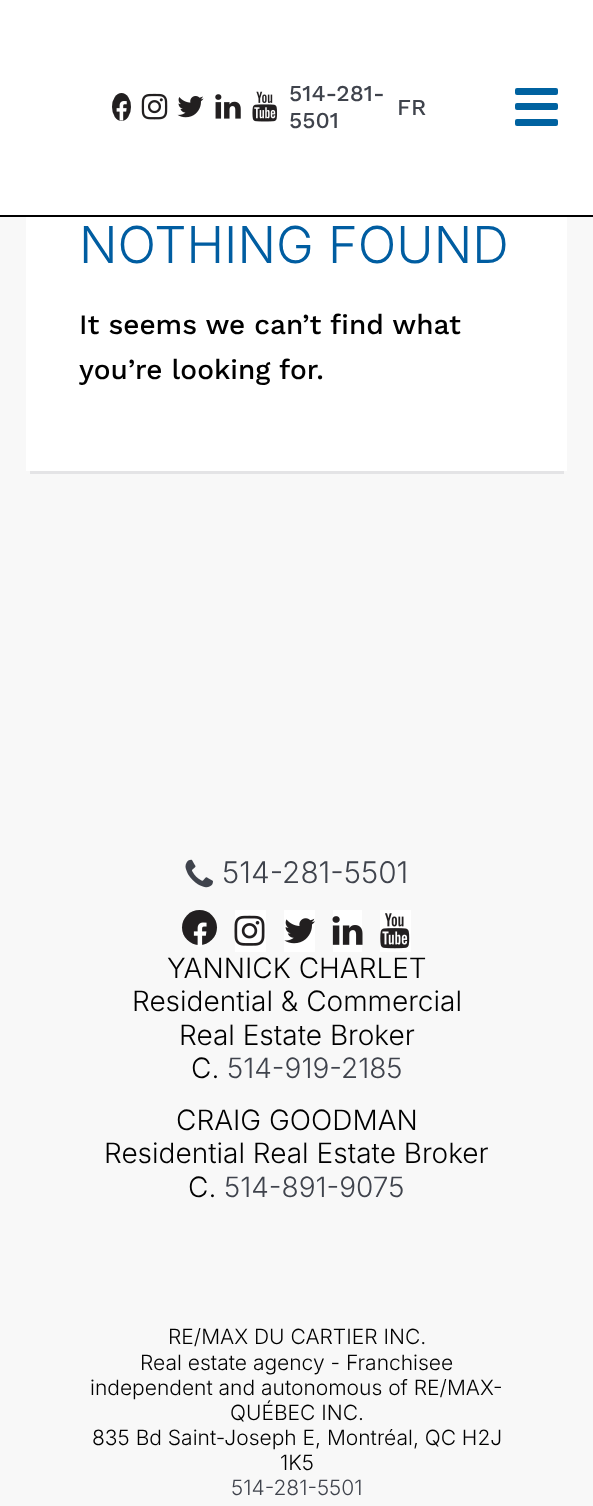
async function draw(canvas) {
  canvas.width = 593;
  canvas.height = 1506;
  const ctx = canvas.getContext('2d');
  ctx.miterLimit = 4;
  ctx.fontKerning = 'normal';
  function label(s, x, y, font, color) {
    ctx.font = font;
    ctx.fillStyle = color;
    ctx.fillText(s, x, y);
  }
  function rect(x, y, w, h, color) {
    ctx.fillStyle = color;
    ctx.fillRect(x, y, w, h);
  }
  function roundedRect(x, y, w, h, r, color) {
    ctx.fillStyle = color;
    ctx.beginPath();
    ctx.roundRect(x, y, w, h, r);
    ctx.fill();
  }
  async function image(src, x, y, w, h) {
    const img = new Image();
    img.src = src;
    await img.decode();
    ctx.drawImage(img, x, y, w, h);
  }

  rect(0, 0, 593, 1506, '#f8f8f8');
  rect(0, 0, 593, 215, '#fff');
  rect(0, 215, 593, 2, '#000');
  ctx.fillStyle = '#221f20';
  ctx.beginPath();
  ctx.ellipse(121.5, 107, 9.5, 14, 0, 0, 2 * Math.PI);
  ctx.fill();
  await image('assets/img1.png', 116, 101, 11, 20);
  await image('assets/img2.png', 141, 93, 27, 27);
  await image('assets/img3.png', 177, 96, 27, 22);
  await image('assets/img4.png', 215, 94, 26, 25);
  await image('assets/img5.png', 252, 91, 26, 31);
  label('514-281-', 289, 101, '500 22.75px Work Sans', '#3f434c');
  label('5501', 289, 128, '500 22.75px Work Sans', '#3f434c');
  label('FR', 397, 115, '500 22.75px Work Sans', '#3f434c');
  roundedRect(515, 88, 43, 7, 2, '#0062a0');
  roundedRect(515, 103, 43, 7, 2, '#0062a0');
  roundedRect(515, 119, 43, 7, 2, '#0062a0');
  rect(30, 471, 534, 3, '#e4e4e6');
  rect(26, 217, 541, 254, '#fff');
  label('NOTHING FOUND', 79, 263, '300 50.75px Inter', '#005da1');
  label('It seems we can’t find what', 79, 334, '500 28px Work Sans', '#000');
  label('you’re looking for.', 79, 379, '500 28px Work Sans', '#000');
  await image('assets/img6.png', 185, 859, 28, 29);
  label('514-281-5501', 222, 883, '300 29.75px Inter', '#3f434c');
  ctx.fillStyle = '#221f20';
  ctx.beginPath();
  ctx.arc(199.5, 927.5, 17.5, 0, 2 * Math.PI);
  ctx.fill();
  await image('assets/img7.png', 193, 922, 14, 25);
  rect(235, 910, 31, 42, '#fff');
  await image('assets/img8.png', 234, 915, 31, 31);
  rect(284, 910, 31, 42, '#fff');
  await image('assets/img9.png', 284, 918, 31, 26);
  rect(333, 910, 29, 42, '#fff');
  await image('assets/img10.png', 332, 916, 31, 29);
  rect(380, 910, 31, 42, '#fff');
  await image('assets/img11.png', 380, 913, 30, 36);
  label('YANNICK CHARLET', 167, 978, '300 28px Inter', '#000');
  label('Residential & Commercial', 132, 1011, '300 28px Inter', '#000');
  label('Real Estate Broker', 179, 1045, '300 28px Inter', '#000');
  label('C.', 191, 1078, '300 28px Inter', '#000');
  label('514-919-2185', 227, 1078, '300 28px Inter', '#3f434c');
  label('CRAIG GOODMAN', 176, 1130, '300 28px Inter', '#000');
  label('Residential Real Estate Broker', 104, 1163, '300 28px Inter', '#000');
  label('C.', 188, 1197, '300 28px Inter', '#000');
  label('514-891-9075', 224, 1197, '300 28px Inter', '#3f434c');
  label('RE/MAX DU CARTIER INC.', 168, 1344, '300 21px Inter', '#000');
  label('Real estate agency - Franchisee', 140, 1370, '300 21px Inter', '#000');
  label('independent and autonomous of RE/MAX-', 90, 1395, '300 21px Inter', '#000');
  label('QUÉBEC INC.', 230, 1420, '300 21px Inter', '#000');
  label('835 Bd Saint-Joseph E, Montréal, QC H2J', 92, 1445, '300 21px Inter', '#000');
  label('1K5', 280, 1470, '300 21px Inter', '#000');
  label('514-281-5501', 231, 1495, '300 21px Inter', '#3f434c');
}

draw(document.querySelector('canvas'));
